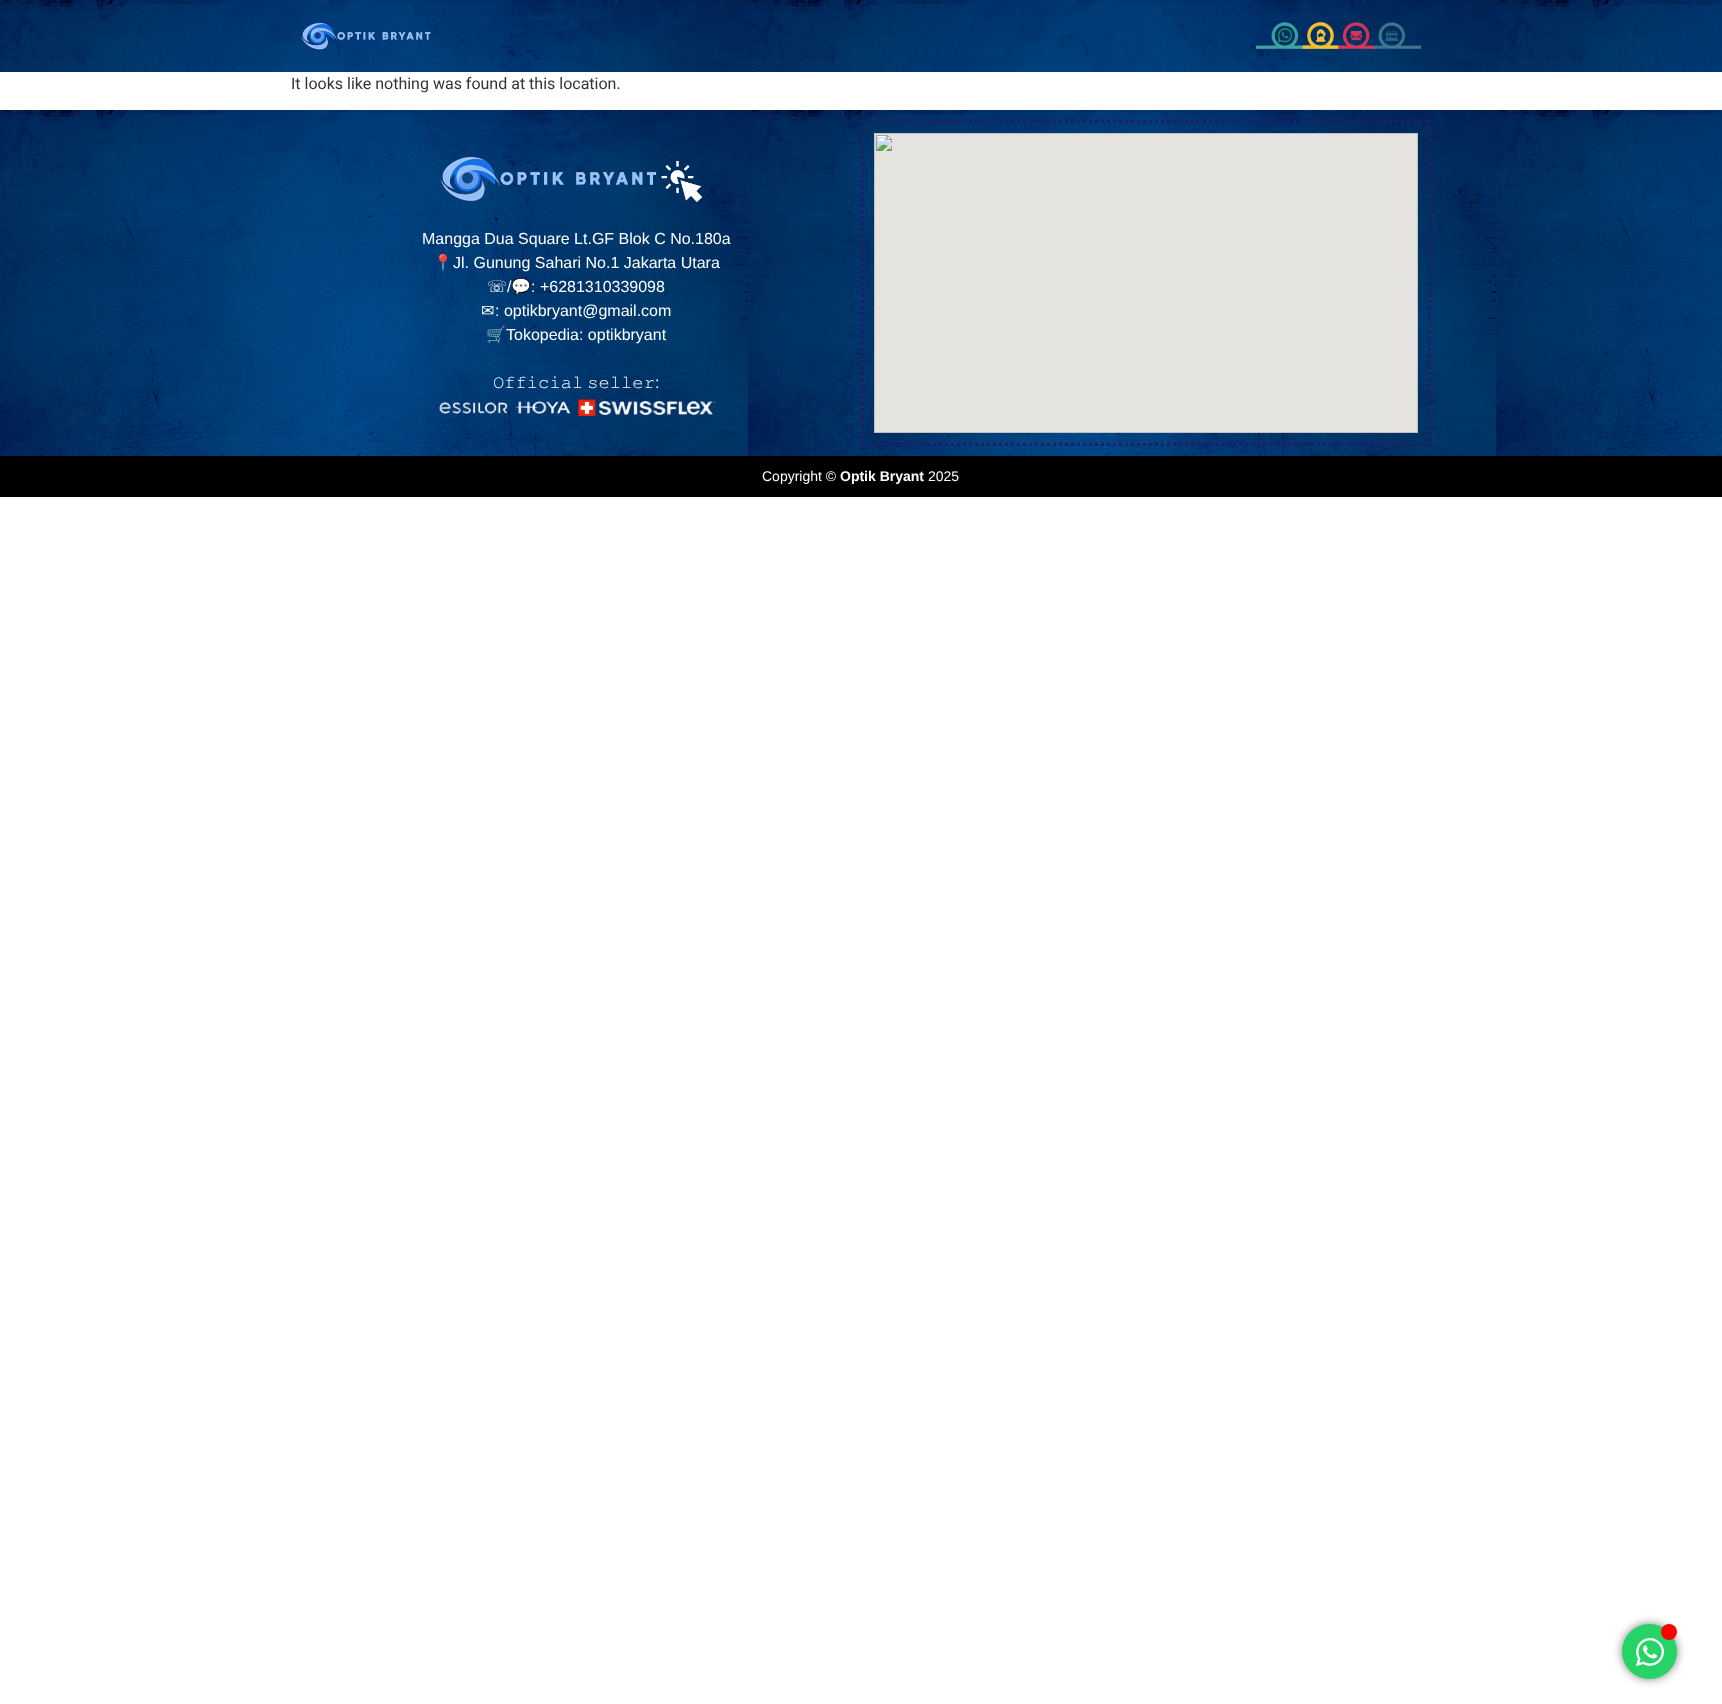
async function draw(canvas) {
  canvas.width = 1722;
  canvas.height = 1704;
  const ctx = canvas.getContext('2d');
  ctx.miterLimit = 4;
  ctx.fontKerning = 'normal';
  function label(s, x, y, font, color) {
    ctx.font = font;
    ctx.fillStyle = color;
    ctx.fillText(s, x, y);
  }
  function rect(x, y, w, h, color) {
    ctx.fillStyle = color;
    ctx.fillRect(x, y, w, h);
  }
  async function image(src, x, y, w, h) {
    const img = new Image();
    img.src = src;
    await img.decode();
    ctx.drawImage(img, x, y, w, h);
  }
  let path;

  rect(0, 0, 1722, 1704, '#fff');
  await image('assets/img1.png', 0, 0, 1722, 72);
  await image('assets/img2.png', 301, 22, 130, 28);
  await image('assets/img3.png', 1256, 22, 165, 27);
  label('It looks like nothing was found at this location.', 291, 89, '16px Roboto', '#333');
  await image('assets/img4.png', 0, 110, 1722, 346);
  await image('assets/img5.png', 440, 156, 262, 46);
  label('Mangga Dua Square Lt.GF Blok C No.180a', 422, 244, '16px Liberation Sans', '#fff');
  label('📍', 433, 268, '16px Noto Color Emoji', '#fff');
  label('Jl. Gunung Sahari No.1 Jakarta Utara', 453, 268, '16px Liberation Sans', '#fff');
  label('☏', 487, 292, '16px DejaVu Sans', '#fff');
  label('/', 507, 292, '16px Liberation Sans', '#fff');
  label('💬', 511, 292, '16px Noto Color Emoji', '#fff');
  label(': +6281310339098', 531, 292, '16px Liberation Sans', '#fff');
  label('✉', 481, 316, '16px DejaVu Sans', '#fff');
  label(': optikbryant@gmail.com', 495, 316, '16px Liberation Sans', '#fff');
  label('🛒', 486, 340, '16px Noto Color Emoji', '#fff');
  label('Tokopedia: optikbryant', 506, 340, '16px Liberation Sans', '#fff');
  label('𝙾𝚏𝚏𝚒𝚌𝚒𝚊𝚕 𝚜𝚎𝚕𝚕𝚎𝚛', 493, 388, '16px FreeSerif', '#fff');
  label(':', 655, 388, '16px Liberation Sans', '#fff');
  await image('assets/img6.png', 439, 399, 277, 18);
  path = new Path2D('M861 121.5H1431');
  ctx.strokeStyle = '#211c6c';
  ctx.lineWidth = 3;
  ctx.setLineDash([3, 3]);
  ctx.stroke(path);
  path = new Path2D('M1429.5 120V446');
  ctx.stroke(path);
  path = new Path2D('M861 444.5H1431');
  ctx.stroke(path);
  path = new Path2D('M862.5 120V446');
  ctx.stroke(path);
  await image('assets/img7.png', 874, 133, 544, 300);
  rect(0, 456, 1722, 41, '#000');
  label('Copyright ©', 762, 481, '14px Liberation Sans', '#fff');
  label('Optik Bryant', 840, 481, 'bold 14px Liberation Sans', '#fff');
  label('2025', 928, 481, '14px Liberation Sans', '#fff');
  ctx.fillStyle = '#00000080';
  ctx.filter = 'blur(5px)';
  ctx.beginPath();
  ctx.roundRect(1622, 1624, 55, 55, 27.5);
  ctx.fill();
  ctx.filter = 'none';
  ctx.fillStyle = '#25d366';
  ctx.beginPath();
  ctx.arc(1649.5, 1651.5, 27.5, 0, 2 * Math.PI);
  ctx.fill();
  await image('assets/img8.png', 1636, 1638, 28, 28);
  ctx.fillStyle = '#f00';
  ctx.beginPath();
  ctx.arc(1669, 1632, 8, 0, 2 * Math.PI);
  ctx.fill();
}

draw(document.querySelector('canvas'));
